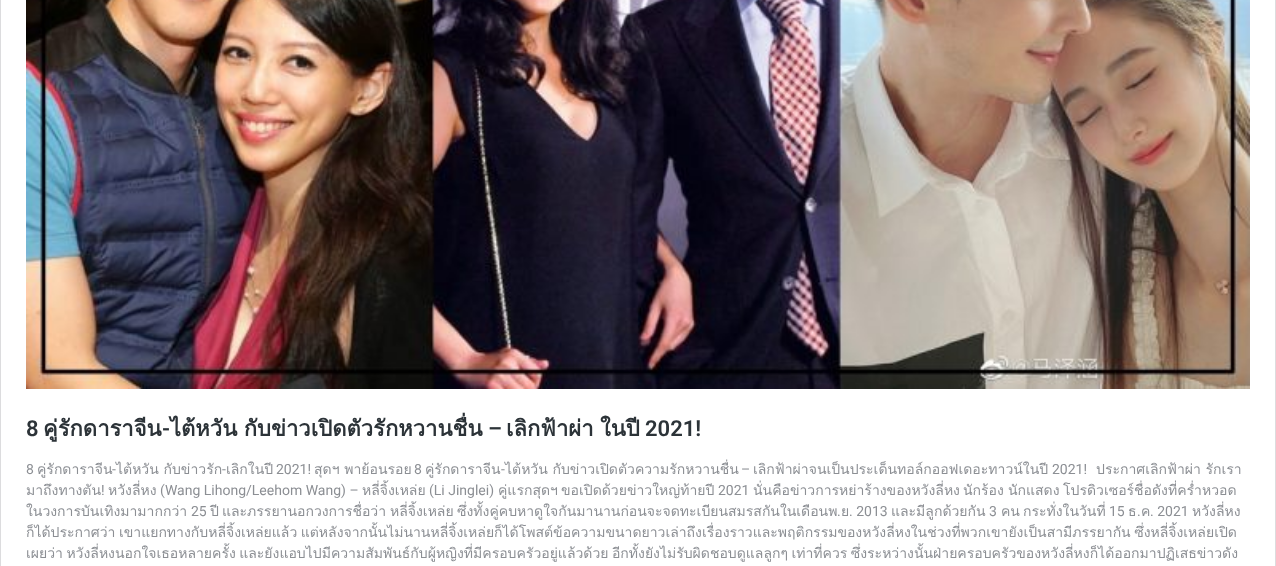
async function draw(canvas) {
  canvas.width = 1276;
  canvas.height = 566;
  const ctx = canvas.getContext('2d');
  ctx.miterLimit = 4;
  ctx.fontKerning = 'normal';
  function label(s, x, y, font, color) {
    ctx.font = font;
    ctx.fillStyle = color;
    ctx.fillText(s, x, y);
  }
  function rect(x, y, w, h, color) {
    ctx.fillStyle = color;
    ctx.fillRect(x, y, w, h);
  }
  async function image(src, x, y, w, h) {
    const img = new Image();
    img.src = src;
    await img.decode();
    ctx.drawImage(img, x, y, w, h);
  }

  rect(0, 0, 1276, 566, '#fff');
  ctx.strokeStyle = '#dcdcde';
  ctx.strokeRect(0.5, -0.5, 1275, 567);
  await image('assets/img1.png', 26, 0, 1224, 389);
  label('8', 26, 436, '600 22px Roboto', '#2c3338');
  label('คู่รักดาราจีน', 43, 436, 'bold 22px Loma', '#2c3338');
  label('-', 162, 436, '600 22px Roboto', '#2c3338');
  ctx.wordSpacing = '-1px';
  label('ไต้หวัน กับข่าวเปิดตัวรักหวานชื่น', 170, 436, 'bold 22px Loma', '#2c3338');
  ctx.wordSpacing = '0px';
  label('–', 488, 436, '600 22px Roboto', '#2c3338');
  ctx.wordSpacing = '-1px';
  label('เลิกฟ้าผ่า ในปี', 506, 436, 'bold 22px Loma', '#2c3338');
  ctx.wordSpacing = '0px';
  label('2021!', 645, 436, '600 22px Roboto', '#2c3338');
  label('8', 26, 474, '14px Roboto', '#8c8f94');
  label('คู่รักดาราจีน', 37, 474, '14px Loma', '#8c8f94');
  label('-', 112, 474, '14px Roboto', '#8c8f94');
  label('ไต้หวัน กับข่าวรัก', 116, 474, '14px Loma', '#8c8f94');
  label('-', 222, 474, '14px Roboto', '#8c8f94');
  label('เลิกในปี', 226, 474, '14px Loma', '#8c8f94');
  label('2021!', 276, 474, '14px Roboto', '#8c8f94');
  label('สุดฯ พาย้อนรอย', 314, 474, '14px Loma', '#8c8f94');
  label('8', 414, 474, '14px Roboto', '#8c8f94');
  label('คู่รักดาราจีน', 425, 474, '14px Loma', '#8c8f94');
  label('-', 501, 474, '14px Roboto', '#8c8f94');
  label('ไต้หวัน กับข่าวเปิดตัวความรักหวานชื่น', 505, 474, '14px Loma', '#8c8f94');
  label('–', 741, 474, '14px Roboto', '#8c8f94');
  label('เลิกฟ้าผ่าจนเป็นประเด็นทอล์กออฟเดอะทาวน์ในปี', 753, 474, '14px Loma', '#8c8f94');
  label('2021!', 1052, 474, '14px Roboto', '#8c8f94');
  label('ประกาศเลิกฟ้าผ่า รักเรา', 1096, 474, '14px Loma', '#8c8f94');
  label('มาถึงทางตัน', 26, 495, '14px Loma', '#8c8f94');
  label('!', 101, 495, '14px Roboto', '#8c8f94');
  label('หวังลี่หง', 108, 495, '14px Loma', '#8c8f94');
  label('(Wang Lihong/Leehom Wang) –', 160, 495, '14px Roboto', '#8c8f94');
  label('หลี่จิ้งเหล่ย', 362, 495, '14px Loma', '#8c8f94');
  label('(Li Jinglei)', 429, 495, '14px Roboto', '#8c8f94');
  label('คู่แรกสุดฯ', 498, 495, '14px Loma', '#8c8f94');
  label('ขอเปิดด้วยข่าวใหญ่ท้ายปี', 561, 495, '14px Loma', '#8c8f94');
  label('2021', 718, 495, '14px Roboto', '#8c8f94');
  label('นั่นคือข่าวการหย่าร้างของหวังลี่หง', 753, 495, '14px Loma', '#8c8f94');
  label('นักร้อง', 963, 495, '14px Loma', '#8c8f94');
  label('นักแสดง', 1008, 495, '14px Loma', '#8c8f94');
  label('โปรดิวเซอร์ชื่อดังที่คร่ำหวอด', 1063, 495, '14px Loma', '#8c8f94');
  label('ในวงการบันเทิงมามากกว่า', 26, 516, '14px Loma', '#8c8f94');
  label('25', 191, 516, '14px Roboto', '#8c8f94');
  label('ปี', 210, 516, '14px Loma', '#8c8f94');
  label('และภรรยานอกวงการชื่อว่า', 222, 516, '14px Loma', '#8c8f94');
  label('หลี่จิ้งเหล่ย', 390, 516, '14px Loma', '#8c8f94');
  label('ซึ่งทั้งคู่คบหาดูใจกันมานานก่อนจะจดทะเบียนสมรสกันในเดือนพ', 457, 516, '14px Loma', '#8c8f94');
  label('.', 837, 516, '14px Roboto', '#8c8f94');
  label('ย', 841, 516, '14px Loma', '#8c8f94');
  label('. 2013', 849, 516, '14px Roboto', '#8c8f94');
  label('และมีลูกด้วยกัน', 891, 516, '14px Loma', '#8c8f94');
  label('3', 989, 516, '14px Roboto', '#8c8f94');
  label('คน', 1001, 516, '14px Loma', '#8c8f94');
  label('กระทั่งในวันที่', 1023, 516, '14px Loma', '#8c8f94');
  label('15', 1109, 516, '14px Roboto', '#8c8f94');
  label('ธ', 1128, 516, '14px Loma', '#8c8f94');
  label('.', 1137, 516, '14px Roboto', '#8c8f94');
  label('ค', 1141, 516, '14px Loma', '#8c8f94');
  label('. 2021', 1150, 516, '14px Roboto', '#8c8f94');
  label('หวังลี่หง', 1192, 516, '14px Loma', '#8c8f94');
  ctx.wordSpacing = '-1.25px';
  label('ก็ได้ประกาศว่า เขาแยกทางกับหลี่จิ้งเหล่ยแล้ว แต่หลังจากนั้นไม่นานหลี่จิ้งเหล่ยก็ได้โพสต์ข้อความขนาดยาวเล่าถึงเรื่องราวและพฤติกรรมของหวังลี่หงในช่วงที่พวกเขายังเป็นสามีภรรยากัน ซึ่งหลี่จิ้งเหล่ยเปิด', 26, 537, '14px Loma', '#8c8f94');
  label('เผยว่า หวังลี่หงนอกใจเธอหลายครั้ง และยังแอบไปมีความสัมพันธ์กับผู้หญิงที่มีครอบครัวอยู่แล้วด้วย อีกทั้งยังไม่รับผิดชอบดูแลลูกๆ เท่าที่ควร ซึ่งระหว่างนั้นฝ่ายครอบครัวของหวังลี่หงก็ได้ออกมาปฏิเสธข่าวดัง', 26, 558, '14px Loma', '#8c8f94');
}

draw(document.querySelector('canvas'));
